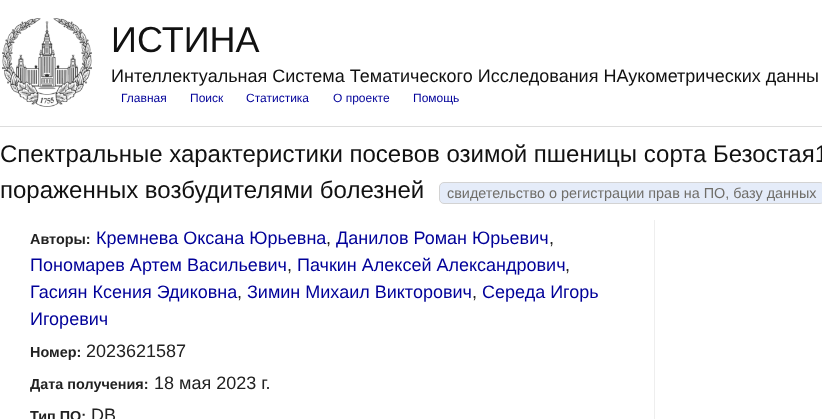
async function draw(canvas) {
  canvas.width = 822;
  canvas.height = 419;
  const ctx = canvas.getContext('2d');
  ctx.miterLimit = 4;
  ctx.fontKerning = 'normal';
  function label(s, x, y, font, color) {
    ctx.font = font;
    ctx.fillStyle = color;
    ctx.fillText(s, x, y);
  }
  function rect(x, y, w, h, color) {
    ctx.fillStyle = color;
    ctx.fillRect(x, y, w, h);
  }
  async function image(src, x, y, w, h) {
    const img = new Image();
    img.src = src;
    await img.decode();
    ctx.drawImage(img, x, y, w, h);
  }

  rect(0, 0, 822, 419, '#fff');
  await image('assets/img1.png', 2, 18, 90, 89);
  label('ИСТИНА', 111, 52, '36px Liberation Sans', '#111');
  label('Интеллектуальная Система Тематического Исследования НАукометрических данны', 111, 82, '18px Liberation Sans', '#111');
  label('Главная', 121, 102, '12px Liberation Sans', '#009');
  label('Поиск', 190, 102, '12px Liberation Sans', '#009');
  label('Статистика', 246, 102, '12px Liberation Sans', '#009');
  label('О проекте', 333, 102, '12px Liberation Sans', '#009');
  label('Помощь', 413, 102, '12px Liberation Sans', '#009');
  rect(0, 126, 822, 1, '#ddd');
  label('Спектральные характеристики посевов озимой пшеницы сорта Безостая1', 0, 162, '24px Liberation Sans', '#111');
  label('пораженных возбудителями болезней', 0, 198, '24px Liberation Sans', '#111');
  ctx.fillStyle = '#e5ecf9';
  ctx.beginPath();
  ctx.roundRect(439.5, 182.5, 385, 21, 4.5);
  ctx.fill();
  ctx.strokeStyle = '#d3d3d3';
  ctx.stroke();
  label('свидетельство о регистрации прав на ПО, базу данных', 447, 198, '14.4px Liberation Sans', '#706e69');
  rect(654, 220, 1, 199, '#eee');
  label('Авторы:', 30, 244, 'bold 14.4px Liberation Sans', '#222');
  label('Кремнева Оксана Юрьевна', 96, 244, '18px Liberation Sans', '#009');
  label(',', 326, 244, '18px Liberation Sans', '#222');
  label('Данилов Роман Юрьевич', 336, 244, '18px Liberation Sans', '#009');
  label(',', 549, 244, '18px Liberation Sans', '#222');
  label('Пономарев Артем Васильевич', 30, 271, '18px Liberation Sans', '#009');
  label(',', 287, 271, '18px Liberation Sans', '#222');
  label('Пачкин Алексей Александрович', 297, 271, '18px Liberation Sans', '#009');
  label(',', 565, 271, '18px Liberation Sans', '#222');
  label('Гасиян Ксения Эдиковна', 30, 298, '18px Liberation Sans', '#009');
  label(',', 237, 298, '18px Liberation Sans', '#222');
  label('Зимин Михаил Викторович', 247, 298, '18px Liberation Sans', '#009');
  label(',', 472, 298, '18px Liberation Sans', '#222');
  label('Середа Игорь', 482, 298, '18px Liberation Sans', '#009');
  label('Игоревич', 30, 325, '18px Liberation Sans', '#009');
  label('Номер:', 30, 357, 'bold 14.4px Liberation Sans', '#222');
  label('2023621587', 86, 357, '18px Liberation Sans', '#222');
  label('Дата получения:', 30, 389, 'bold 14.4px Liberation Sans', '#222');
  label('18 мая 2023 г.', 154, 389, '18px Liberation Sans', '#222');
  label('Тип ПО:', 30, 421, 'bold 14.4px Liberation Sans', '#222');
  label('DB', 91, 421, '18px Liberation Sans', '#222');
}

draw(document.querySelector('canvas'));
